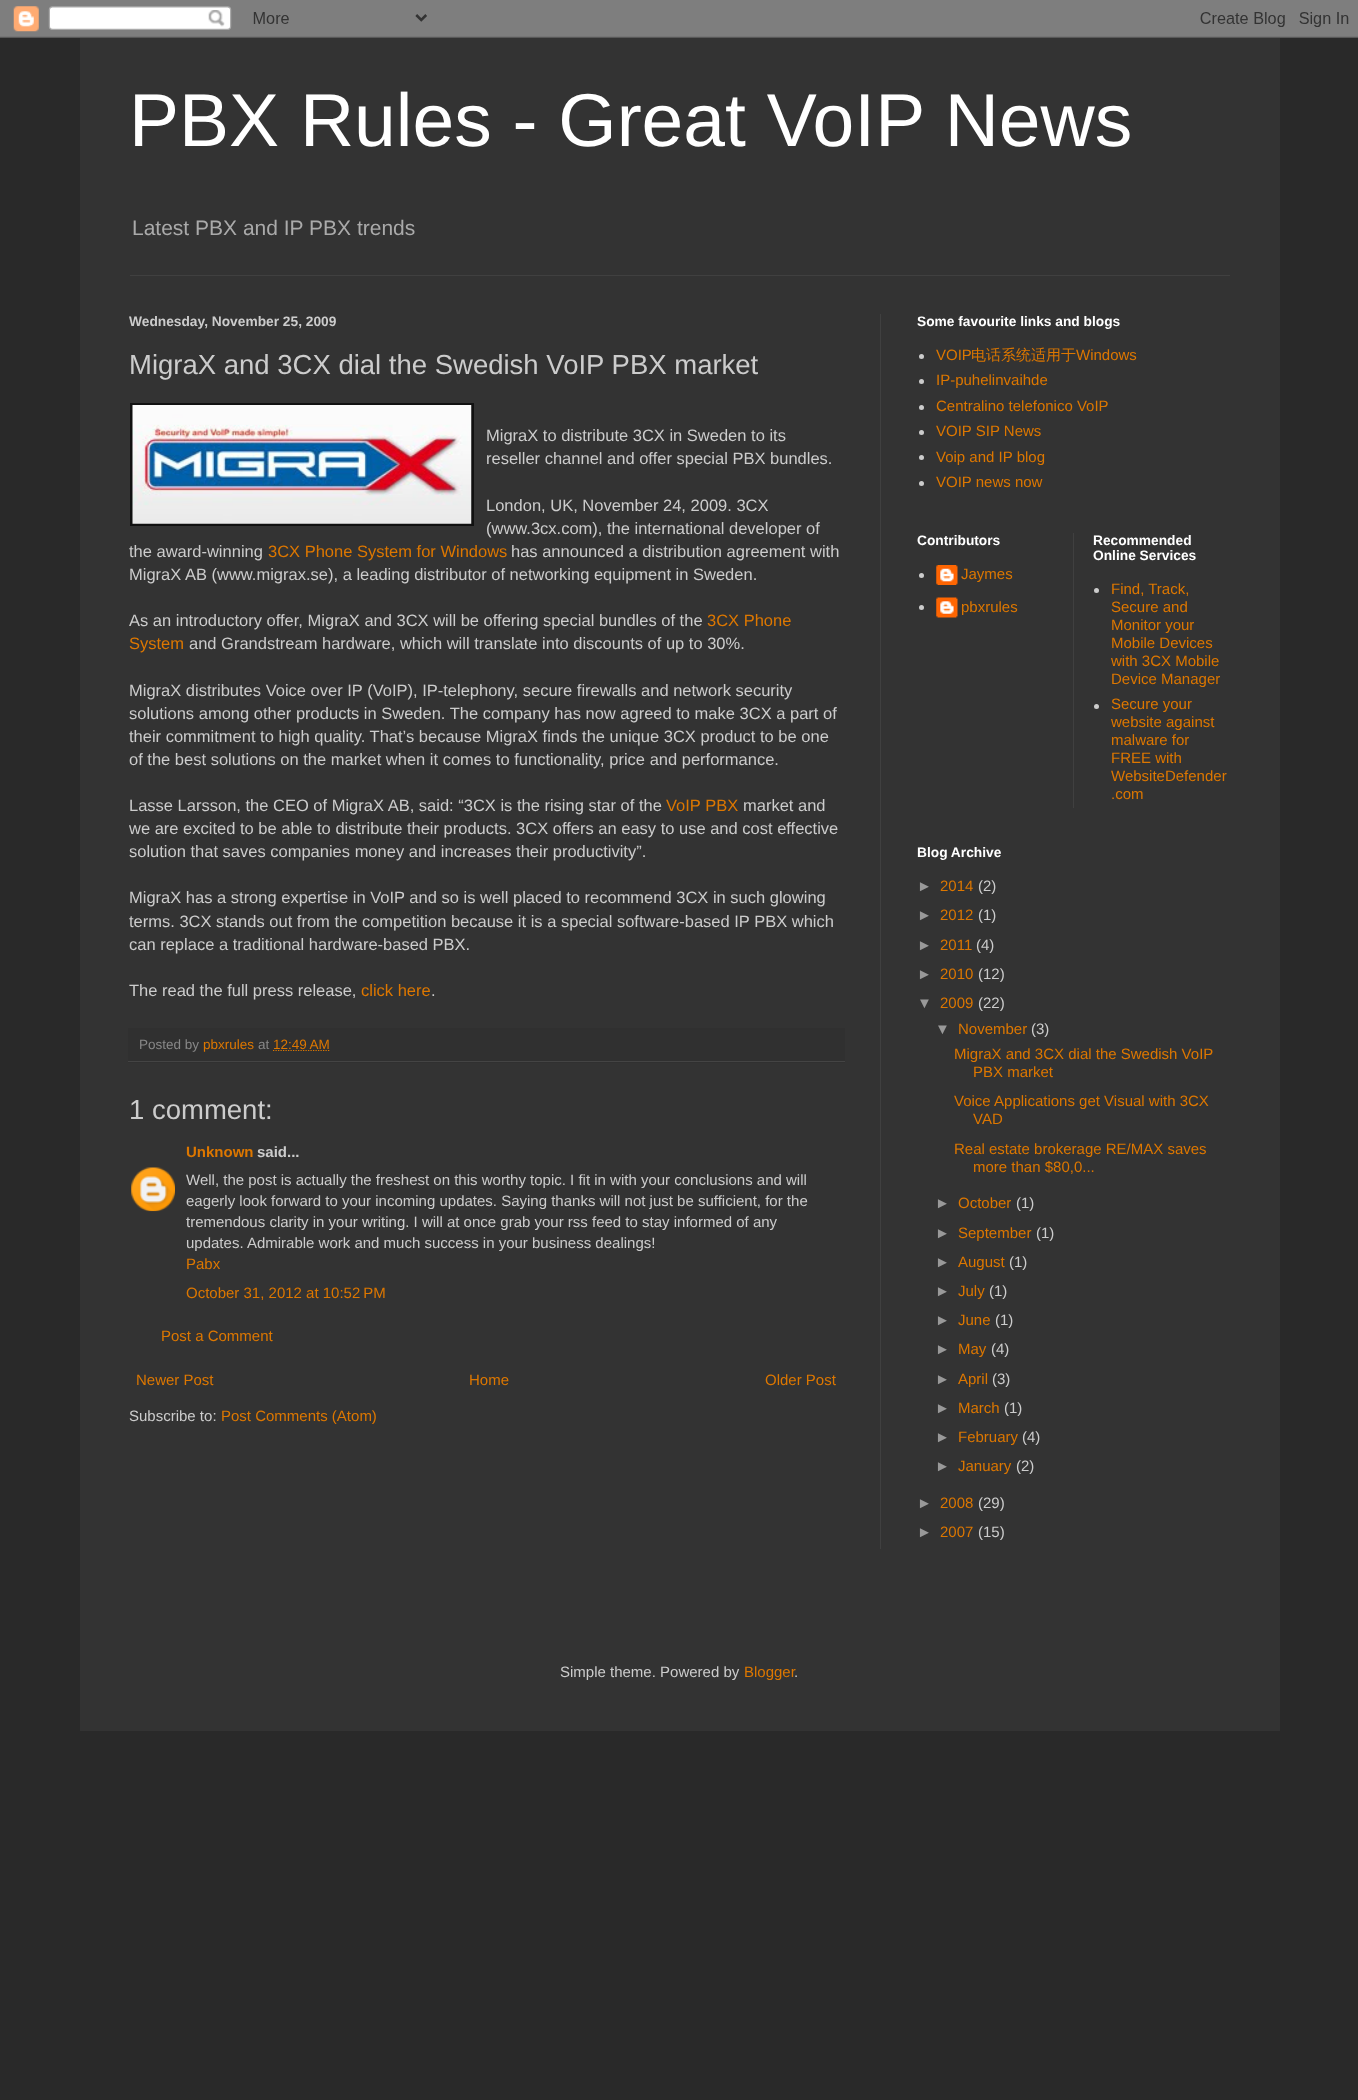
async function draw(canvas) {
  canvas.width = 1358;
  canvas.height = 2100;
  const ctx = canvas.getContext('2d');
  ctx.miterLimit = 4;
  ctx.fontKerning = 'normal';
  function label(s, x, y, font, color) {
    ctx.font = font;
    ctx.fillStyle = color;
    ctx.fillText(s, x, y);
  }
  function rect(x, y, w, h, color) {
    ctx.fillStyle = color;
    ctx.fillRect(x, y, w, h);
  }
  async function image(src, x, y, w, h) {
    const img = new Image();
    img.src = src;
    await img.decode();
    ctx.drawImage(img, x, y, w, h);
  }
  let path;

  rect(0, 0, 1358, 2100, '#292929');
  await image('assets/img1.png', 0, 0, 1358, 38);
  rect(80, 38, 1200, 1693, '#333');
  label('PBX Rules - Great VoIP News', 129, 146, '75px Liberation Sans', '#fff');
  label('Latest PBX and IP PBX trends', 132, 235, '21px Liberation Sans', '#aaa');
  rect(130, 275, 1100, 1, '#404040');
  rect(880, 314, 1, 1235, '#404040');
  label('Wednesday, November 25, 2009', 129, 326, 'bold 13.75px Liberation Sans', '#ccc');
  label('MigraX and 3CX dial the Swedish VoIP PBX market', 129, 374, '27.5px Liberation Sans', '#ccc');
  rect(130, 403, 344, 123, '#111');
  await image('assets/img2.png', 132, 405, 340, 119);
  label('MigraX to distribute 3CX in Sweden to its', 486, 441, '16.5px Liberation Sans', '#ccc');
  label('reseller channel and offer special PBX bundles.', 486, 464, '16.5px Liberation Sans', '#ccc');
  label('London, UK, November 24, 2009. 3CX', 486, 511, '16.5px Liberation Sans', '#ccc');
  label('(www.3cx.com), the international developer of', 486, 534, '16.5px Liberation Sans', '#ccc');
  label('the award-winning', 129, 557, '16.5px Liberation Sans', '#ccc');
  label('3CX Phone System for Windows', 268, 557, '16.5px Liberation Sans', '#d70');
  label('has announced a distribution agreement with', 511, 557, '16.5px Liberation Sans', '#ccc');
  label('MigraX AB (www.migrax.se), a leading distributor of networking equipment in Sweden.', 129, 580, '16.5px Liberation Sans', '#ccc');
  label('As an introductory offer, MigraX and 3CX will be offering special bundles of the', 129, 626, '16.5px Liberation Sans', '#ccc');
  label('3CX Phone', 707, 626, '16.5px Liberation Sans', '#d70');
  label('System', 129, 649, '16.5px Liberation Sans', '#d70');
  label('and Grandstream hardware, which will translate into discounts of up to 30%.', 189, 649, '16.5px Liberation Sans', '#ccc');
  label('MigraX distributes Voice over IP (VoIP), IP-telephony, secure firewalls and network security', 129, 696, '16.5px Liberation Sans', '#ccc');
  label('solutions among other products in Sweden. The company has now agreed to make 3CX a part of', 129, 719, '16.5px Liberation Sans', '#ccc');
  label('their commitment to high quality. That’s because MigraX finds the unique 3CX product to be one', 129, 742, '16.5px Liberation Sans', '#ccc');
  label('of the best solutions on the market when it comes to functionality, price and performance.', 129, 765, '16.5px Liberation Sans', '#ccc');
  label('Lasse Larsson, the CEO of MigraX AB, said: “3CX is the rising star of the', 129, 811, '16.5px Liberation Sans', '#ccc');
  label('VoIP PBX', 666, 811, '16.5px Liberation Sans', '#d70');
  label('market and', 743, 811, '16.5px Liberation Sans', '#ccc');
  label('we are excited to be able to distribute their products. 3CX offers an easy to use and cost effective', 129, 834, '16.5px Liberation Sans', '#ccc');
  label('solution that saves companies money and increases their productivity”.', 129, 857, '16.5px Liberation Sans', '#ccc');
  label('MigraX has a strong expertise in VoIP and so is well placed to recommend 3CX in such glowing', 129, 903, '16.5px Liberation Sans', '#ccc');
  label('terms. 3CX stands out from the competition because it is a special software-based IP PBX which', 129, 927, '16.5px Liberation Sans', '#ccc');
  label('can replace a traditional hardware-based PBX.', 129, 950, '16.5px Liberation Sans', '#ccc');
  label('The read the full press release,', 129, 996, '16.5px Liberation Sans', '#ccc');
  label('click here', 361, 996, '16.5px Liberation Sans', '#d70');
  label('.', 431, 996, '16.5px Liberation Sans', '#ccc');
  rect(128, 1028, 717, 35, '#303030');
  rect(128, 1061, 717, 1, '#444');
  label('Posted by', 139, 1049, '13.5px Liberation Sans', '#888');
  label('pbxrules', 203, 1049, '13.5px Liberation Sans', '#d70');
  label('at', 258, 1049, '13.5px Liberation Sans', '#888');
  path = new Path2D('M273 1050.5H329.5');
  ctx.strokeStyle = '#d70';
  ctx.lineWidth = 1.2;
  ctx.setLineDash([1.25, 1.25]);
  ctx.stroke(path);
  label('12:49 AM', 273, 1049, '13.5px Liberation Sans', '#d70');
  label('1 comment:', 129, 1119, '27.5px Liberation Sans', '#ccc');
  label('Unknown', 186, 1157, 'bold 15px Liberation Sans', '#d70');
  label('said...', 257, 1157, 'bold 15px Liberation Sans', '#ccc');
  await image('assets/img3.png', 131, 1167, 44, 45);
  label('Well, the post is actually the freshest on this worthy topic. I fit in with your conclusions and will', 186, 1185, '15px Liberation Sans', '#ccc');
  label('eagerly look forward to your incoming updates. Saying thanks will not just be sufficient, for the', 186, 1206, '15px Liberation Sans', '#ccc');
  label('tremendous clarity in your writing. I will at once grab your rss feed to stay informed of any', 186, 1227, '15px Liberation Sans', '#ccc');
  label('updates. Admirable work and much success in your business dealings!', 186, 1248, '15px Liberation Sans', '#ccc');
  label('Pabx', 186, 1269, '15px Liberation Sans', '#d70');
  label('October 31, 2012 at 10:52 PM', 186, 1298, '15px Liberation Sans', '#d70');
  label('Post a Comment', 161, 1341, '15px Liberation Sans', '#d70');
  label('Newer Post', 136, 1385, '15px Liberation Sans', '#d70');
  label('Home', 469, 1385, '15px Liberation Sans', '#d70');
  label('Older Post', 765, 1385, '15px Liberation Sans', '#d70');
  label('Subscribe to:', 129, 1421, '15px Liberation Sans', '#ccc');
  label('Post Comments (Atom)', 221, 1421, '15px Liberation Sans', '#d70');
  label('Some favourite links and blogs', 917, 326, 'bold 13.75px Liberation Sans', '#fff');
  ctx.fillStyle = '#ccc';
  ctx.beginPath();
  ctx.arc(921.5, 356.5, 2.5, 0, 2 * Math.PI);
  ctx.fill();
  label('VOIP', 936, 360, '15px Liberation Sans', '#d70');
  label('电话系统适用于', 971, 360, '500 15px WenQuanYi Zen Hei', '#d70');
  label('Windows', 1076, 360, '15px Liberation Sans', '#d70');
  ctx.fillStyle = '#ccc';
  ctx.beginPath();
  ctx.arc(921.5, 381.5, 2.5, 0, 2 * Math.PI);
  ctx.fill();
  label('IP-puhelinvaihde', 936, 385, '15px Liberation Sans', '#d70');
  ctx.fillStyle = '#ccc';
  ctx.beginPath();
  ctx.arc(921.5, 407.5, 2.5, 0, 2 * Math.PI);
  ctx.fill();
  label('Centralino telefonico VoIP', 936, 411, '15px Liberation Sans', '#d70');
  ctx.fillStyle = '#ccc';
  ctx.beginPath();
  ctx.arc(921.5, 432.5, 2.5, 0, 2 * Math.PI);
  ctx.fill();
  label('VOIP SIP News', 936, 436, '15px Liberation Sans', '#d70');
  ctx.fillStyle = '#ccc';
  ctx.beginPath();
  ctx.arc(921.5, 457.5, 2.5, 0, 2 * Math.PI);
  ctx.fill();
  label('Voip and IP blog', 936, 462, '15px Liberation Sans', '#d70');
  ctx.fillStyle = '#ccc';
  ctx.beginPath();
  ctx.arc(921.5, 483.5, 2.5, 0, 2 * Math.PI);
  ctx.fill();
  label('VOIP news now', 936, 487, '15px Liberation Sans', '#d70');
  label('Contributors', 917, 545, 'bold 13.75px Liberation Sans', '#fff');
  ctx.fillStyle = '#ccc';
  ctx.beginPath();
  ctx.arc(921.5, 575.5, 2.5, 0, 2 * Math.PI);
  ctx.fill();
  await image('assets/img4.png', 936, 565, 22, 20);
  label('Jaymes', 961, 579, '15px Liberation Sans', '#d70');
  ctx.fillStyle = '#ccc';
  ctx.beginPath();
  ctx.arc(921.5, 607.5, 2.5, 0, 2 * Math.PI);
  ctx.fill();
  await image('assets/img5.png', 936, 597, 22, 21);
  label('pbxrules', 961, 612, '15px Liberation Sans', '#d70');
  rect(1073, 533, 1, 275, '#404040');
  label('Recommended', 1093, 545, 'bold 13.75px Liberation Sans', '#fff');
  label('Online Services', 1093, 560, 'bold 13.75px Liberation Sans', '#fff');
  ctx.fillStyle = '#ccc';
  ctx.beginPath();
  ctx.arc(1096.5, 590.5, 2.5, 0, 2 * Math.PI);
  ctx.fill();
  label('Find, Track,', 1111, 594, '15px Liberation Sans', '#d70');
  label('Secure and', 1111, 612, '15px Liberation Sans', '#d70');
  label('Monitor your', 1111, 630, '15px Liberation Sans', '#d70');
  label('Mobile Devices', 1111, 648, '15px Liberation Sans', '#d70');
  label('with 3CX Mobile', 1111, 666, '15px Liberation Sans', '#d70');
  label('Device Manager', 1111, 684, '15px Liberation Sans', '#d70');
  ctx.fillStyle = '#ccc';
  ctx.beginPath();
  ctx.arc(1096.5, 706.5, 2.5, 0, 2 * Math.PI);
  ctx.fill();
  label('Secure your', 1111, 709, '15px Liberation Sans', '#d70');
  label('website against', 1111, 727, '15px Liberation Sans', '#d70');
  label('malware for', 1111, 745, '15px Liberation Sans', '#d70');
  label('FREE with', 1111, 763, '15px Liberation Sans', '#d70');
  label('WebsiteDefender', 1111, 781, '15px Liberation Sans', '#d70');
  label('.com', 1111, 799, '15px Liberation Sans', '#d70');
  label('Blog Archive', 917, 857, 'bold 13.75px Liberation Sans', '#fff');
  label('►', 917, 891, '15px Liberation Sans', '#999');
  label('2014', 940, 891, '15px Liberation Sans', '#d70');
  label('(2)', 978, 891, '15px Liberation Sans', '#ccc');
  label('►', 917, 920, '15px Liberation Sans', '#999');
  label('2012', 940, 920, '15px Liberation Sans', '#d70');
  label('(1)', 978, 920, '15px Liberation Sans', '#ccc');
  label('►', 917, 950, '15px Liberation Sans', '#999');
  label('2011', 940, 950, '15px Liberation Sans', '#d70');
  label('(4)', 976, 950, '15px Liberation Sans', '#ccc');
  label('►', 917, 979, '15px Liberation Sans', '#999');
  label('2010', 940, 979, '15px Liberation Sans', '#d70');
  label('(12)', 978, 979, '15px Liberation Sans', '#ccc');
  label('▼', 917, 1008, '15px Liberation Sans', '#999');
  label('2009', 940, 1008, '15px Liberation Sans', '#d70');
  label('(22)', 978, 1008, '15px Liberation Sans', '#ccc');
  label('▼', 935, 1034, '15px Liberation Sans', '#999');
  label('November', 958, 1034, '15px Liberation Sans', '#d70');
  label('(3)', 1031, 1034, '15px Liberation Sans', '#ccc');
  label('MigraX and 3CX dial the Swedish VoIP', 954, 1059, '15px Liberation Sans', '#d70');
  label('PBX market', 973, 1077, '15px Liberation Sans', '#d70');
  label('Voice Applications get Visual with 3CX', 954, 1106, '15px Liberation Sans', '#d70');
  label('VAD', 973, 1124, '15px Liberation Sans', '#d70');
  label('Real estate brokerage RE/MAX saves', 954, 1154, '15px Liberation Sans', '#d70');
  label('more than $80,0...', 973, 1172, '15px Liberation Sans', '#d70');
  label('►', 935, 1208, '15px Liberation Sans', '#999');
  label('October', 958, 1208, '15px Liberation Sans', '#d70');
  label('(1)', 1016, 1208, '15px Liberation Sans', '#ccc');
  label('►', 935, 1238, '15px Liberation Sans', '#999');
  label('September', 958, 1238, '15px Liberation Sans', '#d70');
  label('(1)', 1036, 1238, '15px Liberation Sans', '#ccc');
  label('►', 935, 1267, '15px Liberation Sans', '#999');
  label('August', 958, 1267, '15px Liberation Sans', '#d70');
  label('(1)', 1009, 1267, '15px Liberation Sans', '#ccc');
  label('►', 935, 1296, '15px Liberation Sans', '#999');
  label('July', 958, 1296, '15px Liberation Sans', '#d70');
  label('(1)', 989, 1296, '15px Liberation Sans', '#ccc');
  label('►', 935, 1325, '15px Liberation Sans', '#999');
  label('June', 958, 1325, '15px Liberation Sans', '#d70');
  label('(1)', 995, 1325, '15px Liberation Sans', '#ccc');
  label('►', 935, 1354, '15px Liberation Sans', '#999');
  label('May', 958, 1354, '15px Liberation Sans', '#d70');
  label('(4)', 991, 1354, '15px Liberation Sans', '#ccc');
  label('►', 935, 1384, '15px Liberation Sans', '#999');
  label('April', 958, 1384, '15px Liberation Sans', '#d70');
  label('(3)', 992, 1384, '15px Liberation Sans', '#ccc');
  label('►', 935, 1413, '15px Liberation Sans', '#999');
  label('March', 958, 1413, '15px Liberation Sans', '#d70');
  label('(1)', 1004, 1413, '15px Liberation Sans', '#ccc');
  label('►', 935, 1442, '15px Liberation Sans', '#999');
  label('February', 958, 1442, '15px Liberation Sans', '#d70');
  label('(4)', 1022, 1442, '15px Liberation Sans', '#ccc');
  label('►', 935, 1471, '15px Liberation Sans', '#999');
  label('January', 958, 1471, '15px Liberation Sans', '#d70');
  label('(2)', 1016, 1471, '15px Liberation Sans', '#ccc');
  label('►', 917, 1508, '15px Liberation Sans', '#999');
  label('2008', 940, 1508, '15px Liberation Sans', '#d70');
  label('(29)', 978, 1508, '15px Liberation Sans', '#ccc');
  label('►', 917, 1537, '15px Liberation Sans', '#999');
  label('2007', 940, 1537, '15px Liberation Sans', '#d70');
  label('(15)', 978, 1537, '15px Liberation Sans', '#ccc');
  label('Simple theme. Powered by', 560, 1677, '15px Liberation Sans', '#ccc');
  label('Blogger', 744, 1677, '15px Liberation Sans', '#d70');
  label('.', 794, 1677, '15px Liberation Sans', '#ccc');
}

draw(document.querySelector('canvas'));
